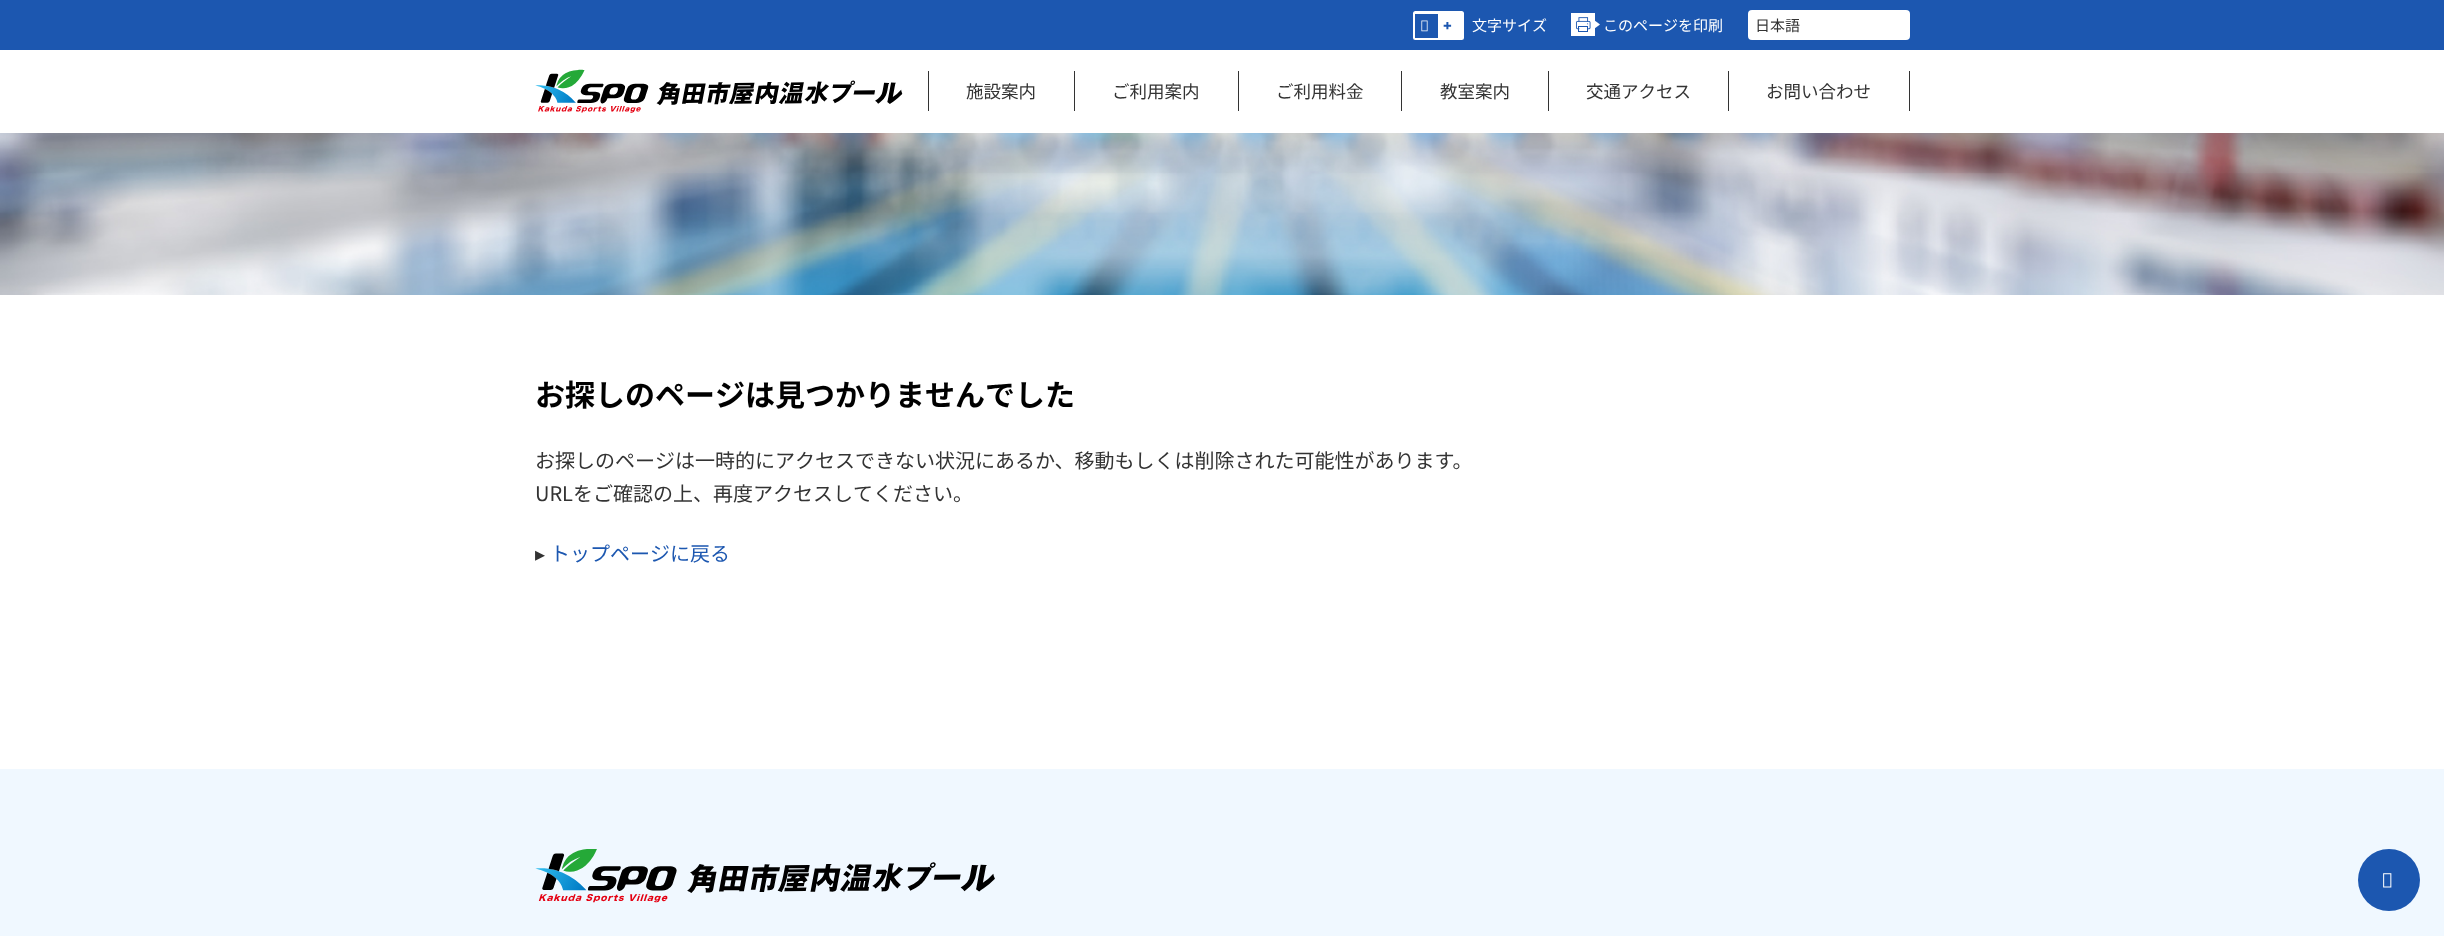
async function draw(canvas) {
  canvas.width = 2444;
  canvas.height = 936;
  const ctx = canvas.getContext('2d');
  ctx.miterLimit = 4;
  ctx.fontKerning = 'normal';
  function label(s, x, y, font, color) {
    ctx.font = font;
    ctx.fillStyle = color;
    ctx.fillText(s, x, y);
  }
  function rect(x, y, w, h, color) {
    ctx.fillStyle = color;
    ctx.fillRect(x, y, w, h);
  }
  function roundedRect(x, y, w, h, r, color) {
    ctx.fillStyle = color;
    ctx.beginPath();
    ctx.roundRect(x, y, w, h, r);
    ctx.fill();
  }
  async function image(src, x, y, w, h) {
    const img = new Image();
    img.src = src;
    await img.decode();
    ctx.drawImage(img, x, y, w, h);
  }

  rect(0, 0, 2444, 936, '#fff');
  rect(0, 0, 2444, 50, '#1c57b0');
  ctx.beginPath();
  ctx.roundRect(1414.5, 12.5, 48, 26, 1);
  ctx.strokeStyle = '#fff';
  ctx.lineWidth = 3;
  ctx.stroke();
  rect(1415, 14, 23, 24, '#1c57b0');
  await image('assets/img1.png', 1421, 20, 7, 12);
  rect(1438, 14, 23, 23, '#fff');
  label('+', 1443, 31, '900 15px Noto Sans', '#1c57b0');
  label('文字サイズ', 1472, 31, '15px Noto Sans JP', '#fff');
  await image('assets/img2.png', 1571, 13, 29, 23);
  label('このページを印刷', 1603, 31, '15px Noto Sans JP', '#fff');
  roundedRect(1748, 10, 162, 30, 4, '#fff');
  label('日本語', 1755, 31, '15px Noto Sans JP', '#333');
  await image('assets/img3.png', 535, 69, 368, 44);
  rect(928, 71, 1, 40, '#333');
  label('施設案内', 966, 98, '17.5px Noto Sans JP', '#333');
  rect(1074, 71, 1, 40, '#333');
  label('ご利用案内', 1112, 98, '17.5px Noto Sans JP', '#333');
  rect(1238, 71, 1, 40, '#333');
  label('ご利用料金', 1276, 98, '17.5px Noto Sans JP', '#333');
  rect(1401, 71, 1, 40, '#333');
  label('教室案内', 1440, 98, '17.5px Noto Sans JP', '#333');
  rect(1548, 71, 1, 40, '#333');
  label('交通アクセス', 1586, 98, '17.5px Noto Sans JP', '#333');
  rect(1909, 71, 1, 40, '#333');
  rect(1728, 71, 1, 40, '#333');
  label('お問い合わせ', 1766, 98, '17.5px Noto Sans JP', '#333');
  await image('assets/img4.png', 0, 133, 2444, 162);
  label('お探しのページは見つかりませんでした', 535, 406, 'bold 30px Noto Sans JP', '#000');
  label('お探しのページは一時的にアクセスできない状況にあるか、移動もしくは削除された可能性があります。', 535, 468, '20px Noto Sans JP', '#333');
  label('URLをご確認の上、再度アクセスしてください。', 535, 501, '20px Noto Sans JP', '#333');
  label('▸', 535, 561, '20px DejaVu Sans', '#333');
  label('トップページに戻る', 550, 561, '20px Noto Sans JP', '#1c57b0');
  rect(0, 769, 2444, 167, '#f0f8ff');
  await image('assets/img5.png', 535, 849, 460, 54);
  ctx.fillStyle = '#1c57b0';
  ctx.beginPath();
  ctx.arc(2389, 880, 31, 0, 2 * Math.PI);
  ctx.fill();
  await image('assets/img6.png', 2383, 873, 9, 15);
}

draw(document.querySelector('canvas'));
